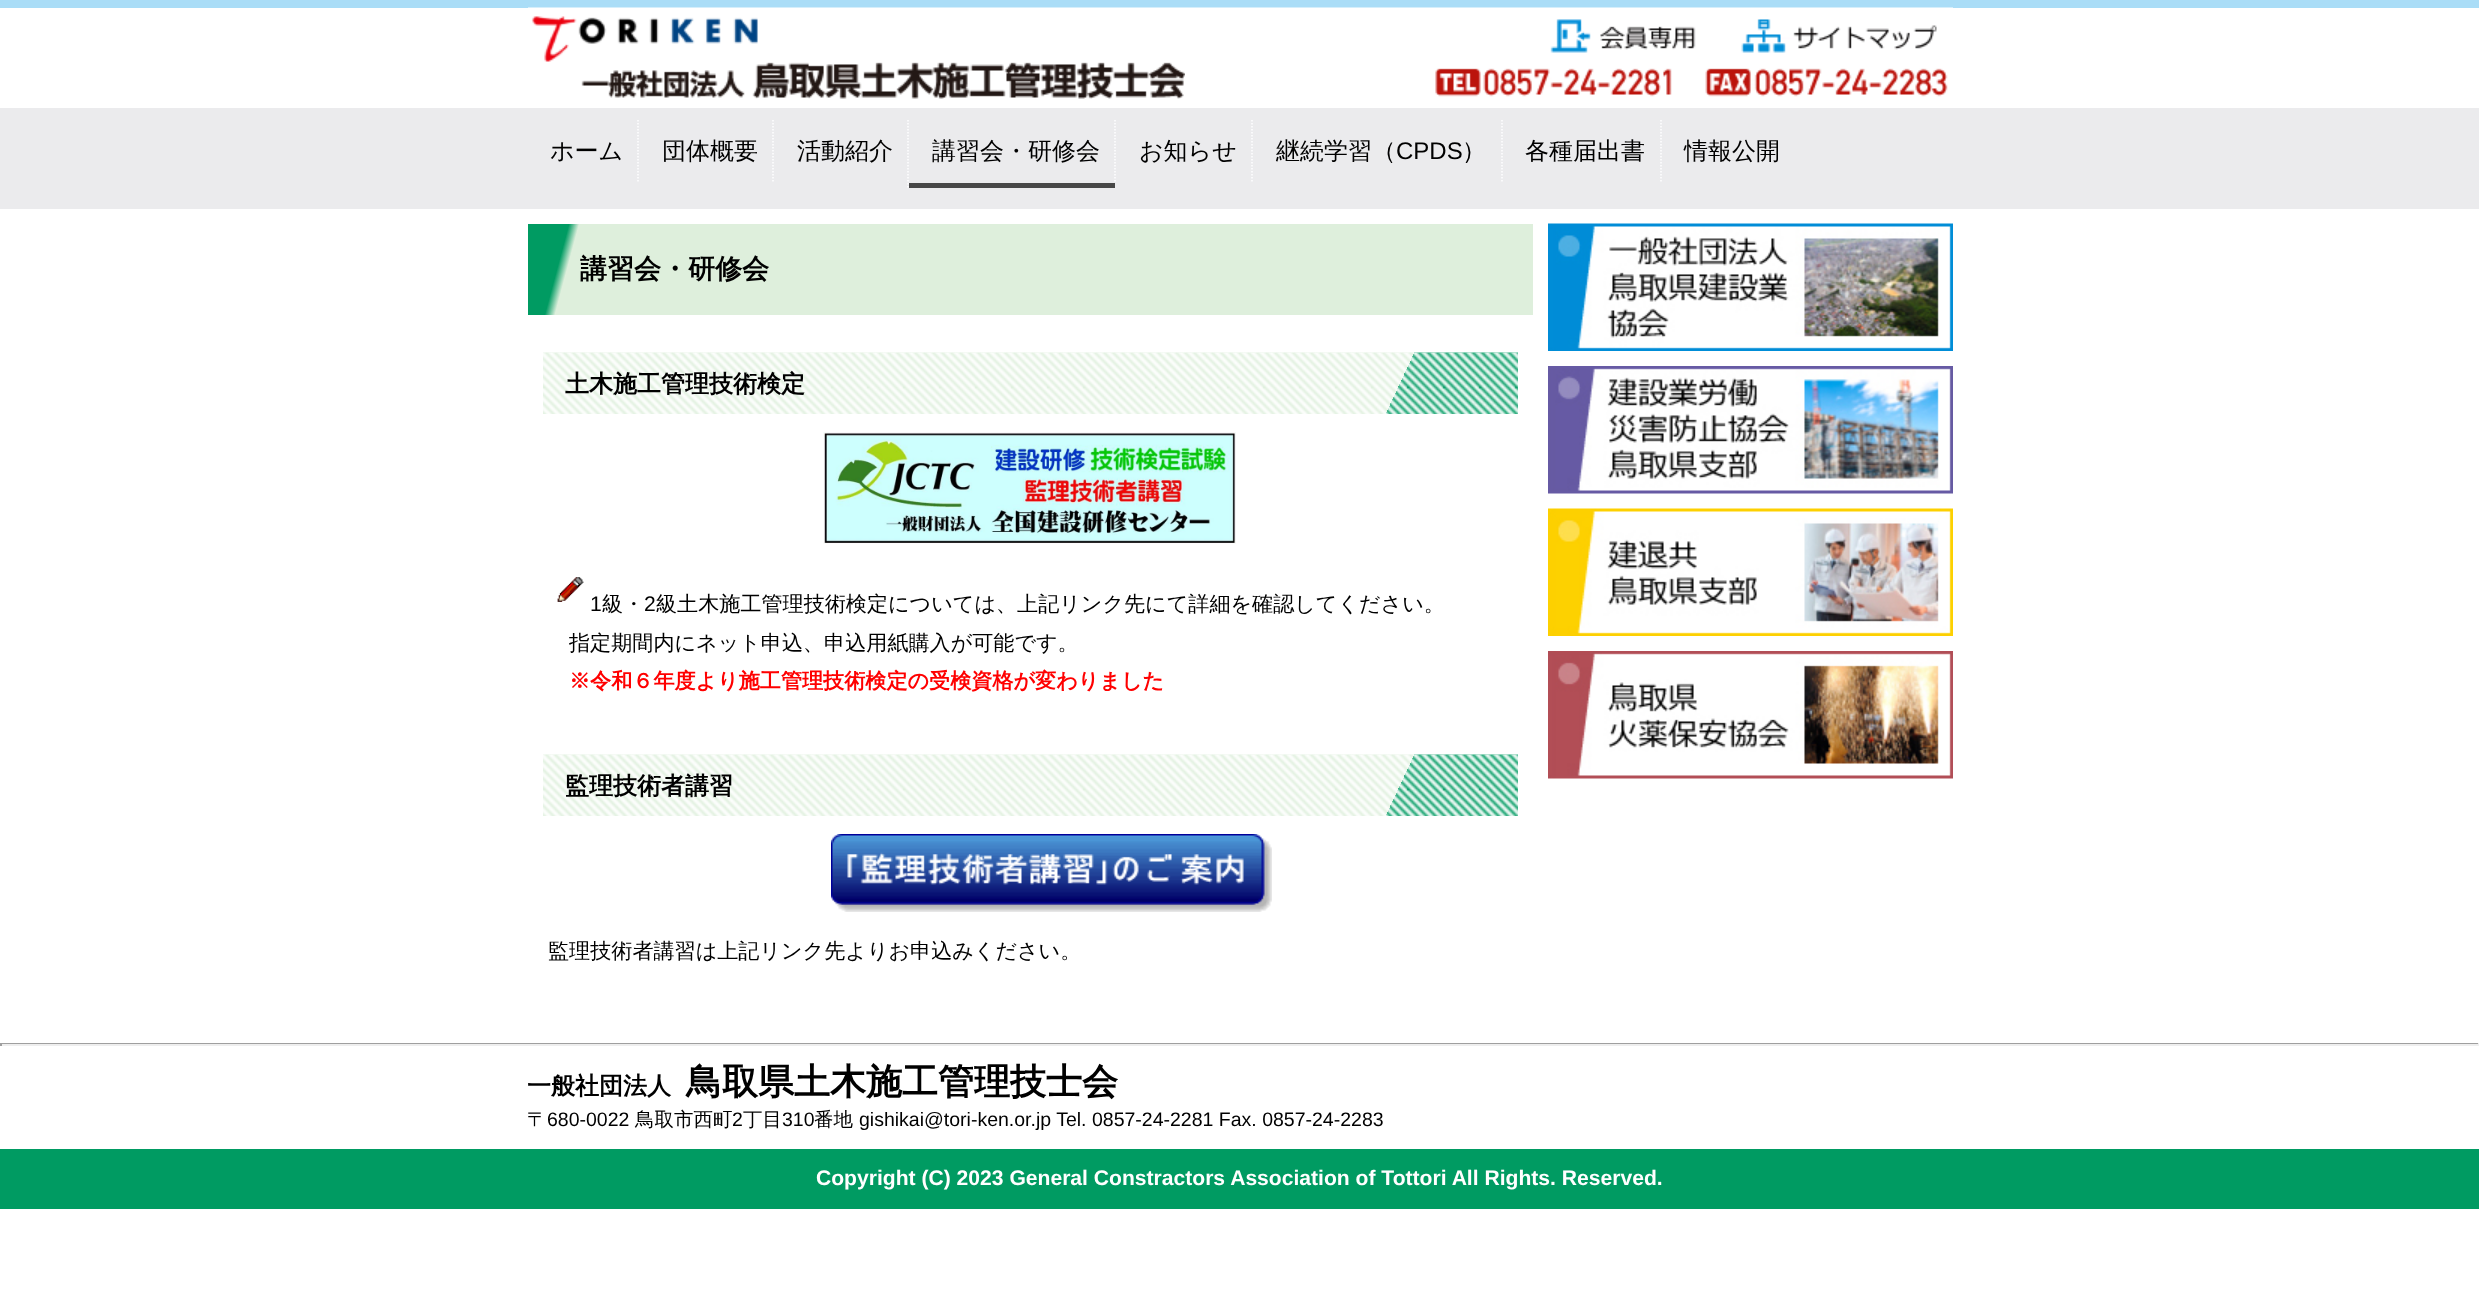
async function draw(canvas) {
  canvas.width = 2479;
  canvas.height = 1289;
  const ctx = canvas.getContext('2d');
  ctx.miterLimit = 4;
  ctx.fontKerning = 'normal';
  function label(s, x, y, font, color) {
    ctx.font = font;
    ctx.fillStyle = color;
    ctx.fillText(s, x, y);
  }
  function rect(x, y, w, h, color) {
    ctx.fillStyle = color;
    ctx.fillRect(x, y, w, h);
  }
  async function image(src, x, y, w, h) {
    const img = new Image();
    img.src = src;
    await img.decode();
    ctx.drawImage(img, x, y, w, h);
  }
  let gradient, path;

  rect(0, 0, 2479, 1289, '#fff');
  rect(0, 0, 2479, 8, '#aaddf7');
  await image('assets/img1.png', 528, 7, 1425, 90);
  await image('assets/img2.png', 531, 16, 654, 83);
  rect(0, 108, 2479, 101, '#ebebed');
  label('ホーム', 550, 159, '500 24px WenQuanYi Zen Hei', '#000');
  path = new Path2D('M638 120V183');
  ctx.strokeStyle = '#fff';
  ctx.lineWidth = 1.5;
  ctx.setLineDash([1.5, 1.5]);
  ctx.stroke(path);
  label('団体概要', 662, 159, '500 24px WenQuanYi Zen Hei', '#000');
  path = new Path2D('M773 120V183');
  ctx.stroke(path);
  label('活動紹介', 797, 159, '500 24px WenQuanYi Zen Hei', '#000');
  path = new Path2D('M908 120V187.5');
  ctx.stroke(path);
  rect(909, 183, 206, 5, '#474747');
  label('講習会・研修会', 932, 159, '500 24px WenQuanYi Zen Hei', '#000');
  path = new Path2D('M1115 120V183');
  ctx.stroke(path);
  label('お知らせ', 1139, 159, '500 24px WenQuanYi Zen Hei', '#000');
  path = new Path2D('M1252 120V183');
  ctx.stroke(path);
  label('継続学習（', 1276, 159, '500 24px WenQuanYi Zen Hei', '#000');
  label('CPDS', 1396, 159, '24px Liberation Sans', '#000');
  label('）', 1462, 159, '500 24px WenQuanYi Zen Hei', '#000');
  path = new Path2D('M1502 120V183');
  ctx.stroke(path);
  label('各種届出書', 1525, 159, '500 24px WenQuanYi Zen Hei', '#000');
  path = new Path2D('M1661 120V183');
  ctx.stroke(path);
  label('情報公開', 1684, 159, '500 24px WenQuanYi Zen Hei', '#000');
  gradient = ctx.createLinearGradient(550, 141, 1511, 398);
  gradient.addColorStop(0.04, '#009b62');
  gradient.addColorStop(0.05, '#deefdc');
  ctx.fillStyle = gradient;
  ctx.fillRect(528, 224, 1005, 91);
  label('講習会・研修会', 580, 278, 'bold 27px WenQuanYi Zen Hei', '#000');
  await image('assets/img3.png', 543, 352, 975, 62);
  label('土木施工管理技術検定', 565, 392, 'bold 24px WenQuanYi Zen Hei', '#000');
  await image('assets/img4.png', 823, 432, 413, 112);
  await image('assets/img5.png', 557, 577, 27, 25);
  label('1', 590, 611, '21.1px Liberation Sans', '#000');
  label('級・', 602, 611, '500 21.1px WenQuanYi Zen Hei', '#000');
  label('2', 644, 611, '21.1px Liberation Sans', '#000');
  label('級土木施工管理技術検定については、上記リンク先にて詳細を確認してください。', 656, 611, '500 21.1px WenQuanYi Zen Hei', '#000');
  label('指定期間内にネット申込、申込用紙購入が可能です。', 569, 650, '500 21.1px WenQuanYi Zen Hei', '#000');
  label('※令和６年度より施工管理技術検定の受検資格が変わりました', 569, 688, 'bold 21.1px WenQuanYi Zen Hei', '#f00');
  await image('assets/img6.png', 543, 754, 975, 62);
  label('監理技術者講習', 565, 794, 'bold 24px WenQuanYi Zen Hei', '#000');
  await image('assets/img7.png', 831, 834, 441, 78);
  label('監理技術者講習は上記リンク先よりお申込みください。', 548, 958, '500 21.1px WenQuanYi Zen Hei', '#000');
  await image('assets/img8.png', 1548, 223, 405, 128);
  await image('assets/img9.png', 1548, 366, 405, 128);
  await image('assets/img10.png', 1548, 508, 405, 128);
  await image('assets/img11.png', 1548, 651, 405, 128);
  rect(0, 1043, 2479, 1, '#9f9f9f');
  rect(2478, 1043, 1, 3, '#eee');
  rect(0, 1044, 2479, 2, '#eee');
  rect(0, 1043, 2, 3, '#9f9f9f');
  label('一般社団法人', 527, 1094, 'bold 24px WenQuanYi Zen Hei', '#000');
  label('鳥取県土木施工管理技士会', 686, 1094, 'bold 36px WenQuanYi Zen Hei', '#000');
  label('〒', 527, 1126, '500 19.5px WenQuanYi Zen Hei', '#000');
  label('680-0022', 547, 1126, '19.5px Liberation Sans', '#000');
  label('鳥取市西町', 635, 1126, '500 19.5px WenQuanYi Zen Hei', '#000');
  label('2', 732, 1126, '19.5px Liberation Sans', '#000');
  label('丁目', 743, 1126, '500 19.5px WenQuanYi Zen Hei', '#000');
  label('310', 782, 1126, '19.5px Liberation Sans', '#000');
  label('番地', 814, 1126, '500 19.5px WenQuanYi Zen Hei', '#000');
  label('gishikai@tori-ken.or.jp Tel. 0857-24-2281 Fax. 0857-24-2283', 859, 1126, '19.5px Liberation Sans', '#000');
  rect(0, 1149, 2479, 60, '#009b62');
  label('Copyright (C) 2023 General Constractors Association of Tottori All Rights. Reserved.', 816, 1185, 'bold 21.1px Liberation Sans', '#fff');
}

draw(document.querySelector('canvas'));
